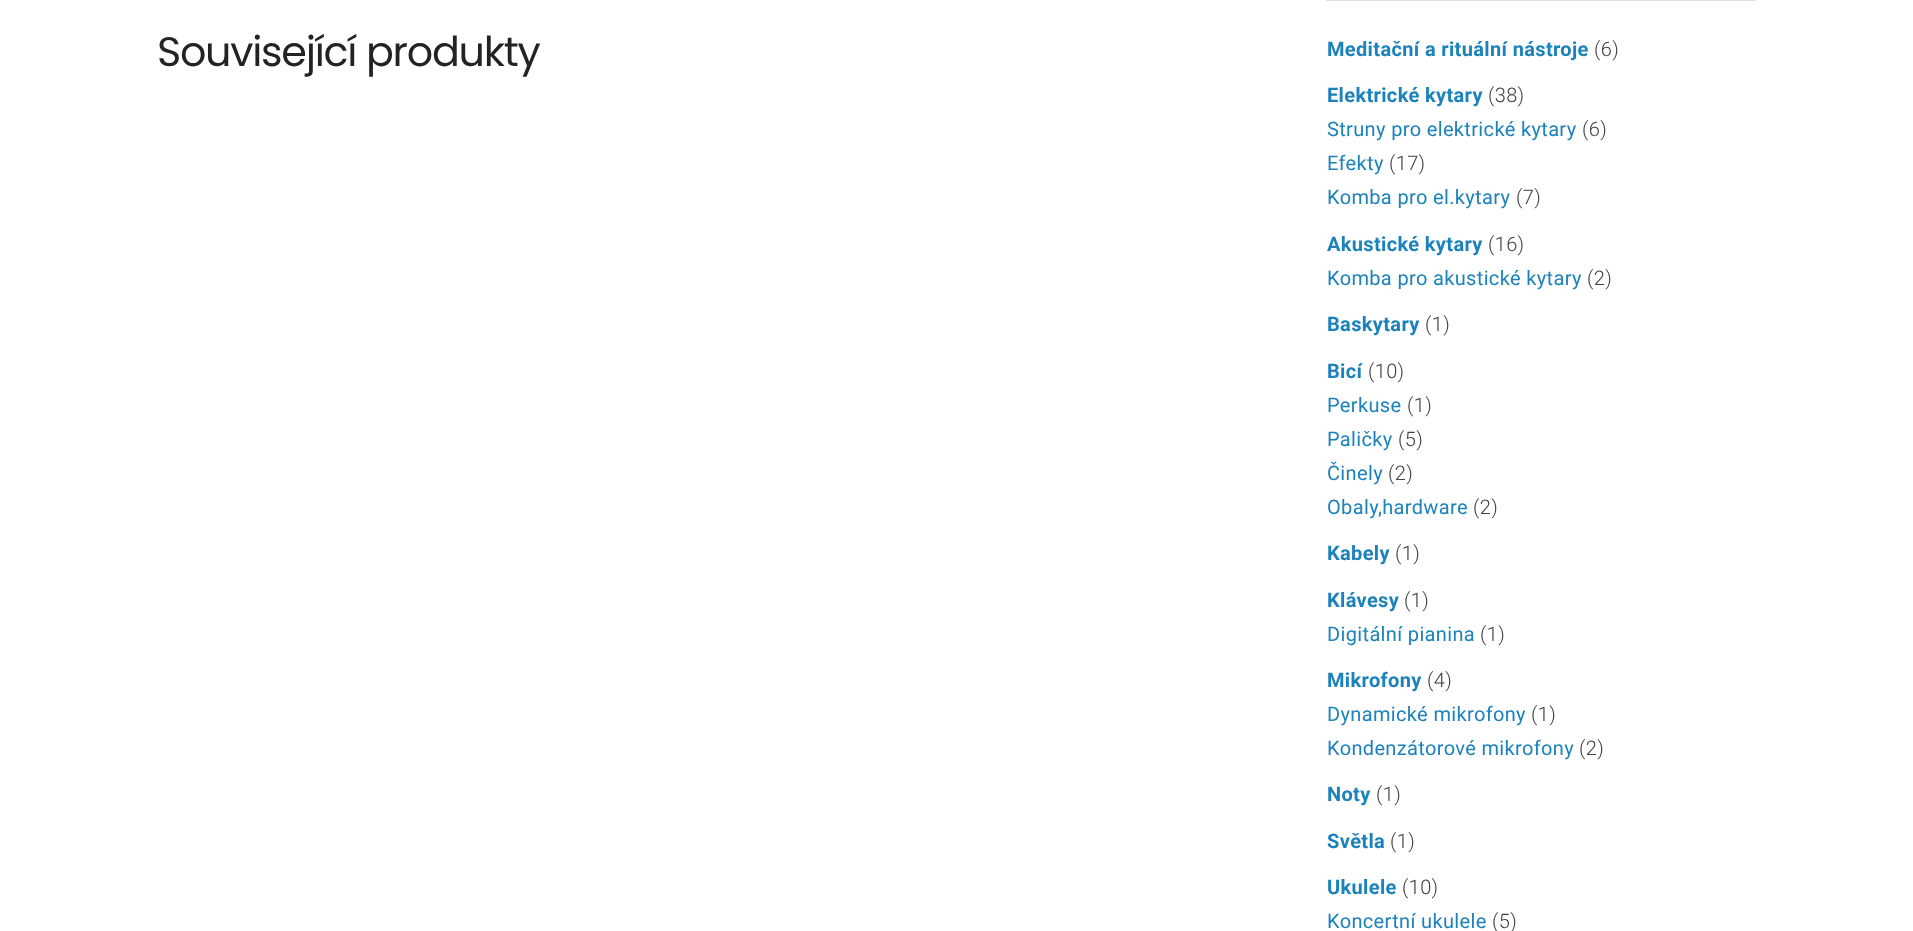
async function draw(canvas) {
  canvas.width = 1913;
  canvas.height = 931;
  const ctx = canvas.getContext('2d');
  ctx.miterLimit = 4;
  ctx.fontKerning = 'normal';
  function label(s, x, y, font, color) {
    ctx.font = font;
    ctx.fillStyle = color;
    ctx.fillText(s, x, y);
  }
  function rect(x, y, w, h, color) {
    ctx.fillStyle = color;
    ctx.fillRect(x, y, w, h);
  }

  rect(0, 0, 1913, 931, '#fff');
  ctx.letterSpacing = '-1.25px';
  label('Související produkty', 157, 66, '41.25px Poppins', '#232323');
  rect(1326, 0, 430, 1, '#e1e1e1');
  ctx.letterSpacing = '0.35px';
  label('Meditační a rituální nástroje', 1327, 56, 'bold 20px Roboto', '#1c82bc');
  label('(6)', 1594, 56, '300 20px Roboto', '#414141');
  label('Elektrické kytary', 1327, 102, 'bold 20px Roboto', '#1c82bc');
  label('(38)', 1488, 102, '300 20px Roboto', '#414141');
  label('Struny pro elektrické kytary', 1327, 136, '20px Roboto', '#1c82bc');
  label('(6)', 1582, 136, '300 20px Roboto', '#414141');
  label('Efekty', 1327, 170, '20px Roboto', '#1c82bc');
  label('(17)', 1389, 170, '300 20px Roboto', '#414141');
  label('Komba pro el.kytary', 1327, 204, '20px Roboto', '#1c82bc');
  label('(7)', 1516, 204, '300 20px Roboto', '#414141');
  label('Akustické kytary', 1327, 251, 'bold 20px Roboto', '#1c82bc');
  label('(16)', 1488, 251, '300 20px Roboto', '#414141');
  label('Komba pro akustické kytary', 1327, 285, '20px Roboto', '#1c82bc');
  label('(2)', 1587, 285, '300 20px Roboto', '#414141');
  label('Baskytary', 1327, 331, 'bold 20px Roboto', '#1c82bc');
  label('(1)', 1425, 331, '300 20px Roboto', '#414141');
  label('Bicí', 1327, 378, 'bold 20px Roboto', '#1c82bc');
  label('(10)', 1368, 378, '300 20px Roboto', '#414141');
  label('Perkuse', 1327, 412, '20px Roboto', '#1c82bc');
  label('(1)', 1407, 412, '300 20px Roboto', '#414141');
  label('Paličky', 1327, 446, '20px Roboto', '#1c82bc');
  label('(5)', 1398, 446, '300 20px Roboto', '#414141');
  label('Činely', 1327, 480, '20px Roboto', '#1c82bc');
  label('(2)', 1388, 480, '300 20px Roboto', '#414141');
  label('Obaly,hardware', 1327, 514, '20px Roboto', '#1c82bc');
  label('(2)', 1473, 514, '300 20px Roboto', '#414141');
  label('Kabely', 1327, 560, 'bold 20px Roboto', '#1c82bc');
  label('(1)', 1395, 560, '300 20px Roboto', '#414141');
  label('Klávesy', 1327, 607, 'bold 20px Roboto', '#1c82bc');
  label('(1)', 1404, 607, '300 20px Roboto', '#414141');
  label('Digitální pianina', 1327, 641, '20px Roboto', '#1c82bc');
  label('(1)', 1480, 641, '300 20px Roboto', '#414141');
  label('Mikrofony', 1327, 687, 'bold 20px Roboto', '#1c82bc');
  label('(4)', 1427, 687, '300 20px Roboto', '#414141');
  label('Dynamické mikrofony', 1327, 721, '20px Roboto', '#1c82bc');
  label('(1)', 1531, 721, '300 20px Roboto', '#414141');
  label('Kondenzátorové mikrofony', 1327, 755, '20px Roboto', '#1c82bc');
  label('(2)', 1579, 755, '300 20px Roboto', '#414141');
  label('Noty', 1327, 801, 'bold 20px Roboto', '#1c82bc');
  label('(1)', 1376, 801, '300 20px Roboto', '#414141');
  label('Světla', 1327, 848, 'bold 20px Roboto', '#1c82bc');
  label('(1)', 1390, 848, '300 20px Roboto', '#414141');
  label('Ukulele', 1327, 894, 'bold 20px Roboto', '#1c82bc');
  label('(10)', 1402, 894, '300 20px Roboto', '#414141');
  label('Koncertní ukulele', 1327, 928, '20px Roboto', '#1c82bc');
  label('(5)', 1492, 928, '300 20px Roboto', '#414141');
}

draw(document.querySelector('canvas'));
